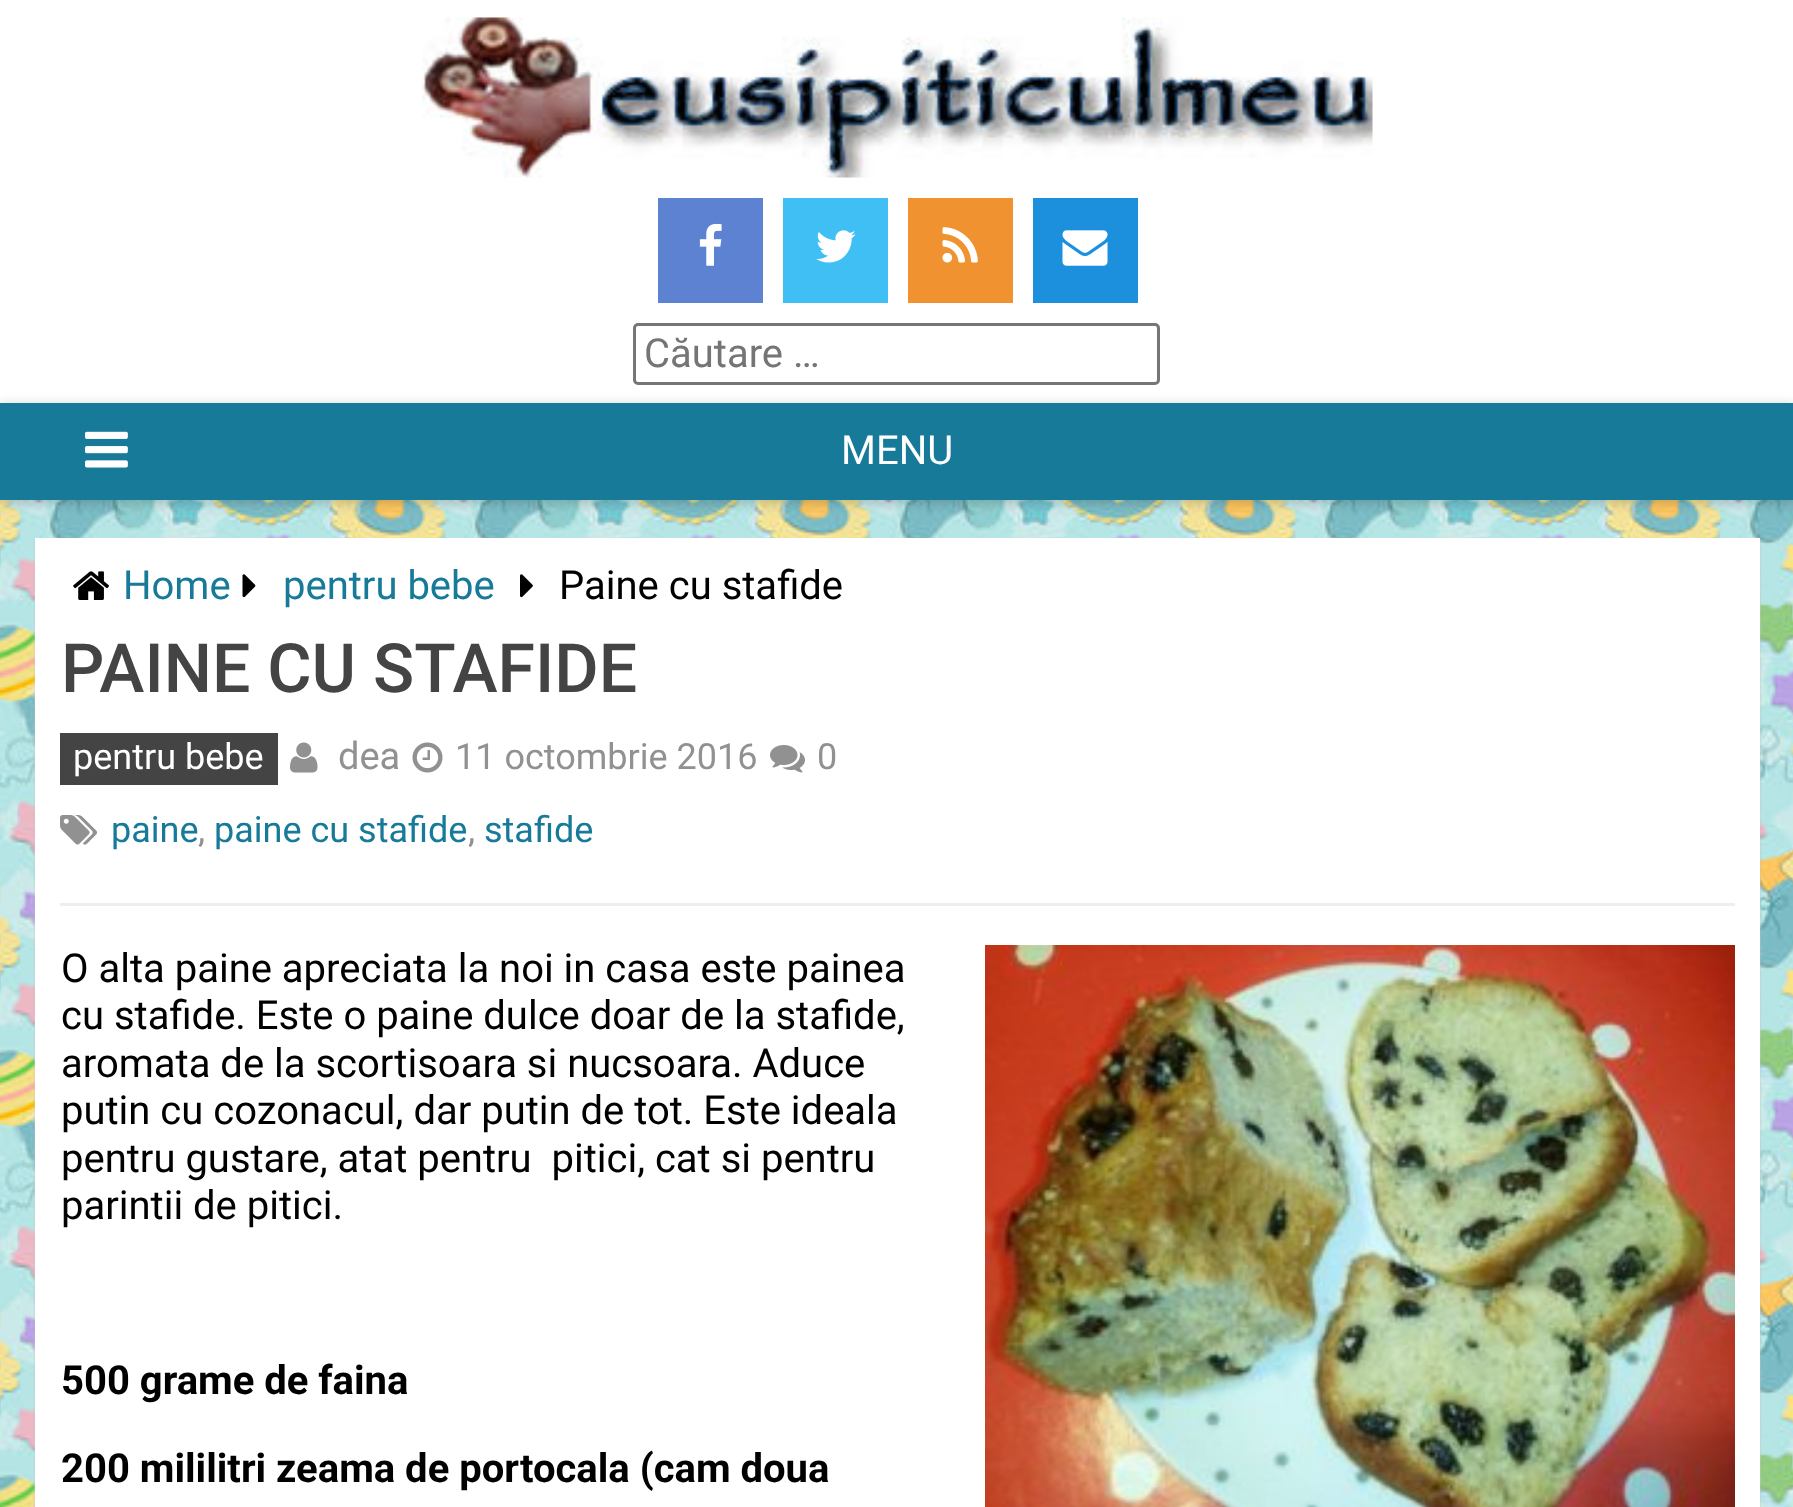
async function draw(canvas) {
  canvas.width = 1793;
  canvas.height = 1507;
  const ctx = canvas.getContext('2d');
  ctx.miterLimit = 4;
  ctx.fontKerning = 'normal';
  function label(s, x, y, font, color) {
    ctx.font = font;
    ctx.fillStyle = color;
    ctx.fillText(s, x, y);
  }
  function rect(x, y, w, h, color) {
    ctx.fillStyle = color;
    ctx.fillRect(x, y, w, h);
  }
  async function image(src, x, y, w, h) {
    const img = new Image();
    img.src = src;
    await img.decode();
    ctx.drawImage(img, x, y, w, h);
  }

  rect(0, 0, 1793, 1507, '#fff');
  await image('assets/img1.png', 0, 500, 1793, 1007);
  await image('assets/img2.png', 422, 17, 951, 161);
  rect(658, 198, 105, 105, '#5d82d1');
  await image('assets/img3.png', 699, 223, 23, 43);
  rect(783, 198, 105, 105, '#40bff5');
  await image('assets/img4.png', 816, 230, 40, 33);
  rect(908, 198, 105, 105, '#ef922f');
  await image('assets/img5.png', 942, 227, 36, 36);
  rect(1033, 198, 105, 105, '#1d90dd');
  await image('assets/img6.png', 1062, 230, 46, 36);
  ctx.beginPath();
  ctx.roundRect(634.5, 324.5, 524, 59, 3.5);
  ctx.strokeStyle = '#767676';
  ctx.lineWidth = 3;
  ctx.stroke();
  label('Căutare …', 644, 367, '40px Roboto', '#757575');
  ctx.fillStyle = '#00000033';
  ctx.filter = 'blur(6px)';
  ctx.beginPath();
  ctx.rect(0, 405, 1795, 98);
  ctx.fill();
  ctx.filter = 'none';
  rect(0, 403, 1793, 97, '#167a98');
  await image('assets/img7.png', 85, 431, 43, 37);
  label('MENU', 841, 464, '40px Roboto', '#fff');
  ctx.fillStyle = '#c2c4c4';
  ctx.filter = 'blur(1px)';
  ctx.beginPath();
  ctx.rect(35, 540, 1725, 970);
  ctx.fill();
  ctx.filter = 'none';
  rect(35, 538, 1725, 969, '#fff');
  await image('assets/img8.png', 73, 571, 36, 29);
  label('Home', 123, 599, '40px Roboto', '#167a98');
  await image('assets/img9.png', 242, 574, 14, 24);
  label('pentru bebe', 283, 599, '40px Roboto', '#167a98');
  await image('assets/img10.png', 520, 574, 13, 24);
  label('Paine cu stafide', 559, 599, '40px Roboto', '#000');
  rect(60, 903, 1675, 3, '#eee');
  label('PAINE CU STAFIDE', 61, 692, '500 68px Roboto', '#444');
  rect(60, 733, 218, 52, '#444');
  label('pentru bebe', 73, 769, '36px Roboto', '#fff');
  await image('assets/img11.png', 290, 742, 28, 31);
  label('dea', 338, 769, '38px Roboto', '#919191');
  await image('assets/img12.png', 412, 742, 31, 31);
  label('11 octombrie 2016', 455, 769, '36px Roboto', '#919191');
  await image('assets/img13.png', 770, 745, 35, 28);
  label('0', 817, 769, '36px Roboto', '#919191');
  await image('assets/img14.png', 60, 815, 38, 30);
  label('paine', 111, 842, '36px Roboto', '#167a98');
  label(',', 198, 842, '36px Roboto', '#919191');
  label('paine cu stafide', 214, 842, '36px Roboto', '#167a98');
  label(',', 468, 842, '36px Roboto', '#919191');
  label('stafide', 484, 842, '36px Roboto', '#167a98');
  label('O alta paine apreciata la noi in casa este painea', 61, 982, '40px Roboto', '#000');
  await image('assets/img15.png', 985, 945, 750, 562);
  label('cu stafide. Este o paine dulce doar de la stafide,', 61, 1029, '40px Roboto', '#000');
  label('aromata de la scortisoara si nucsoara. Aduce', 61, 1077, '40px Roboto', '#000');
  label('putin cu cozonacul, dar putin de tot. Este ideala', 61, 1124, '40px Roboto', '#000');
  label('pentru gustare, atat pentru  pitici, cat si pentru', 61, 1172, '40px Roboto', '#000');
  label('parintii de pitici.', 61, 1219, '40px Roboto', '#000');
  label('500 grame de faina', 61, 1394, 'bold 40px Roboto', '#000');
  label('200 mililitri zeama de portocala (cam doua', 61, 1482, 'bold 40px Roboto', '#000');
}

draw(document.querySelector('canvas'));
